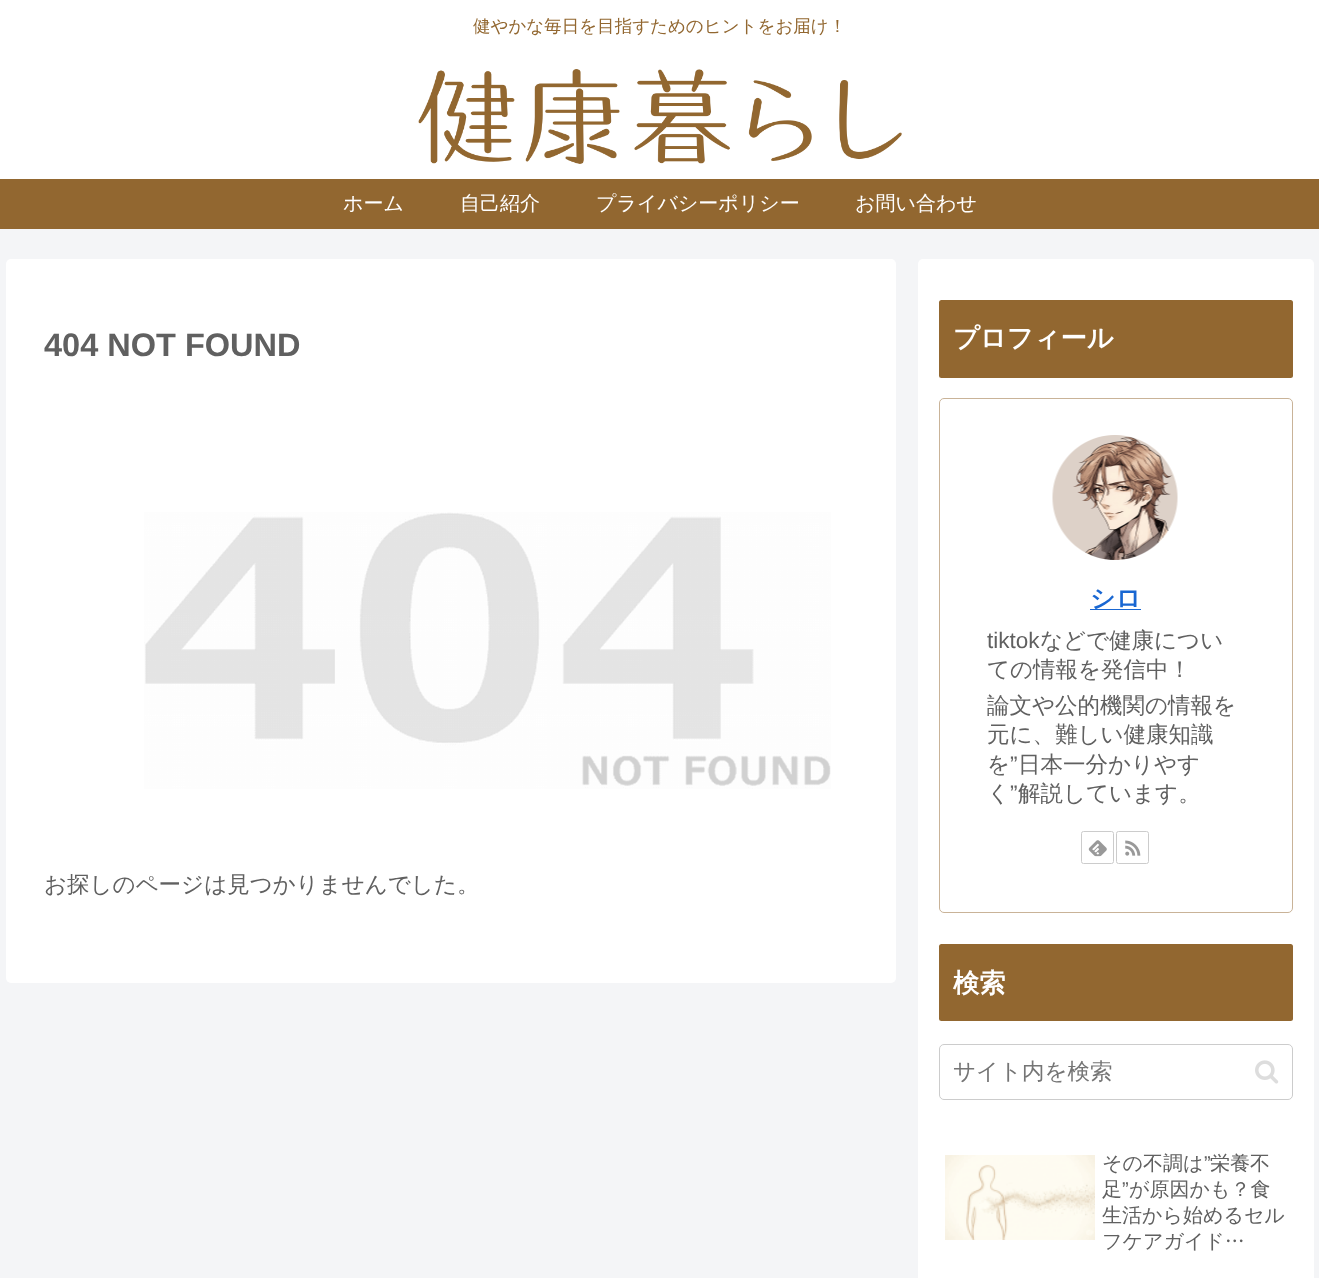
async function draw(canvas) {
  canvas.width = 1319;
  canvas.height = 1278;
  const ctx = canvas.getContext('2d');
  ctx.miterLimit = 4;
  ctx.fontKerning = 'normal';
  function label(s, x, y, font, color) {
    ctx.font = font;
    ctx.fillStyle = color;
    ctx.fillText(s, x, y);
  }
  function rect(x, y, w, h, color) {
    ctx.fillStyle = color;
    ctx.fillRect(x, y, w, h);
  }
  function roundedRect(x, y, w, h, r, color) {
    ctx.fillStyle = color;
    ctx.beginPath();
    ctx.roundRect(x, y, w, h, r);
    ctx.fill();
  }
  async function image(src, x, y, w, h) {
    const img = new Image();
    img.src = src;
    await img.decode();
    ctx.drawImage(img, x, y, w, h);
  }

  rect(0, 0, 1319, 1278, '#f4f5f7');
  rect(0, 0, 1319, 179, '#fff');
  label('健やかな毎日を目指すためのヒントをお届け！', 473, 32, '500 17.5px WenQuanYi Zen Hei', '#926730');
  await image('assets/img1.png', 418, 69, 484, 95);
  rect(0, 179, 1319, 50, '#926730');
  label('ホーム', 343, 210, '500 20px WenQuanYi Zen Hei', '#fff');
  label('自己紹介', 460, 210, '500 20px WenQuanYi Zen Hei', '#fff');
  label('プライバシーポリシー', 596, 210, '500 20px WenQuanYi Zen Hei', '#fff');
  label('お問い合わせ', 855, 210, '500 20px WenQuanYi Zen Hei', '#fff');
  roundedRect(6, 259, 890, 724, 5, '#fff');
  label('404 NOT FOUND', 44, 356, 'bold 32.5px Liberation Sans', '#606060');
  await image('assets/img2.png', 144, 512, 687, 277);
  label('お探しのページは見つかりませんでした。', 44, 892, '500 22.5px WenQuanYi Zen Hei', '#606060');
  roundedRect(918, 259, 396, 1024, 5, '#fff');
  roundedRect(939, 300, 354, 78, 2.5, '#926730');
  label('プロフィール', 953, 347, 'bold 26.25px WenQuanYi Zen Hei', '#fff');
  ctx.beginPath();
  ctx.roundRect(939.5, 398.5, 353, 514, 4.5);
  ctx.strokeStyle = '#c9b398';
  ctx.stroke();
  await image('assets/img3.png', 1052, 435, 126, 125);
  rect(1090, 609, 51, 1, '#1967d2');
  label('シロ', 1090, 607, 'bold 25px WenQuanYi Zen Hei', '#1967d2');
  label('tiktok', 987, 648, '22.5px Liberation Sans', '#606060');
  label('などで健康につい', 1040, 648, '500 22.5px WenQuanYi Zen Hei', '#606060');
  label('ての情報を発信中！', 987, 677, '500 22.5px WenQuanYi Zen Hei', '#606060');
  label('論文や公的機関の情報を', 987, 713, '500 22.5px WenQuanYi Zen Hei', '#606060');
  label('元に、難しい健康知識', 987, 742, '500 22.5px WenQuanYi Zen Hei', '#606060');
  label('を', 987, 772, '500 22.5px WenQuanYi Zen Hei', '#606060');
  label('”', 1010, 772, '22.5px Liberation Sans', '#606060');
  label('日本一分かりやす', 1018, 772, '500 22.5px WenQuanYi Zen Hei', '#606060');
  label('く', 987, 801, '500 22.5px WenQuanYi Zen Hei', '#606060');
  label('”', 1010, 801, '22.5px Liberation Sans', '#606060');
  label('解説しています。', 1018, 801, '500 22.5px WenQuanYi Zen Hei', '#606060');
  ctx.beginPath();
  ctx.roundRect(1081.5, 831.5, 32, 32, 2);
  ctx.strokeStyle = '#ccc';
  ctx.stroke();
  await image('assets/img4.png', 1088, 840, 19, 17);
  ctx.beginPath();
  ctx.roundRect(1116.5, 831.5, 32, 32, 2);
  ctx.stroke();
  await image('assets/img5.png', 1125, 840, 16, 16);
  roundedRect(939, 944, 354, 77, 2.5, '#926730');
  label('検索', 953, 992, 'bold 26.25px WenQuanYi Zen Hei', '#fff');
  ctx.beginPath();
  ctx.roundRect(939.5, 1044.5, 353, 55, 4.5);
  ctx.stroke();
  label('サイト内を検索', 953, 1079, '500 22.5px WenQuanYi Zen Hei', '#757575');
  await image('assets/img6.png', 1255, 1060, 24, 24);
  await image('assets/img7.png', 945, 1155, 150, 85);
  label('その不調は', 1102, 1170, '500 20px WenQuanYi Zen Hei', '#606060');
  label('”', 1204, 1170, '20px Liberation Sans', '#606060');
  label('栄養不', 1210, 1170, '500 20px WenQuanYi Zen Hei', '#606060');
  label('足', 1102, 1196, '500 20px WenQuanYi Zen Hei', '#606060');
  label('”', 1122, 1196, '20px Liberation Sans', '#606060');
  label('が原因かも？食', 1129, 1196, '500 20px WenQuanYi Zen Hei', '#606060');
  label('生活から始めるセル', 1102, 1222, '500 20px WenQuanYi Zen Hei', '#606060');
  label('フケアガイド…', 1102, 1248, '500 20px WenQuanYi Zen Hei', '#606060');
}

draw(document.querySelector('canvas'));
